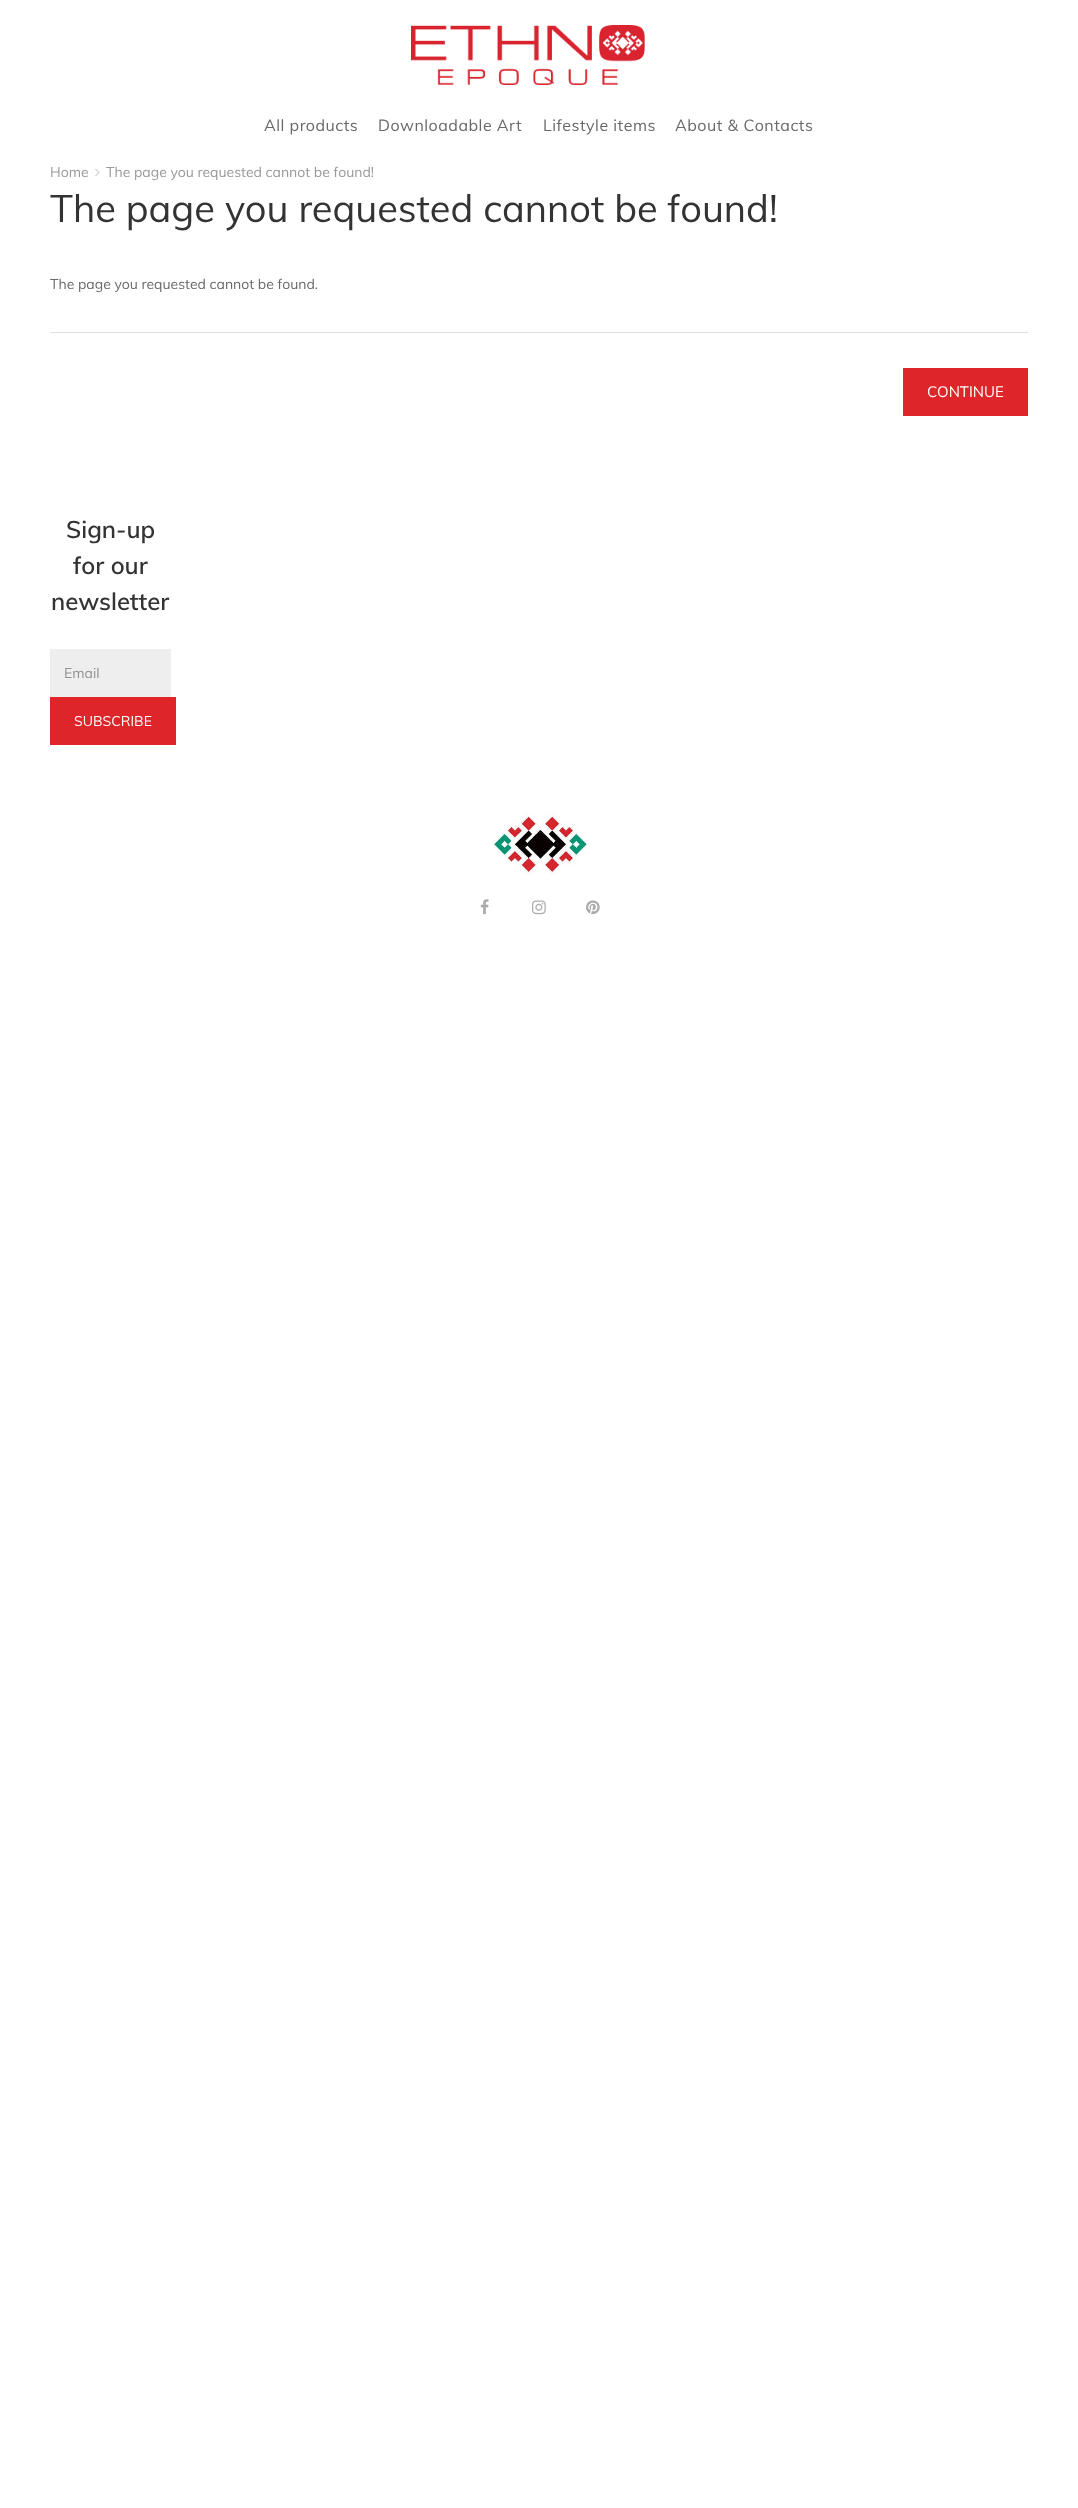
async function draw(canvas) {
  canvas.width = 1078;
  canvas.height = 2508;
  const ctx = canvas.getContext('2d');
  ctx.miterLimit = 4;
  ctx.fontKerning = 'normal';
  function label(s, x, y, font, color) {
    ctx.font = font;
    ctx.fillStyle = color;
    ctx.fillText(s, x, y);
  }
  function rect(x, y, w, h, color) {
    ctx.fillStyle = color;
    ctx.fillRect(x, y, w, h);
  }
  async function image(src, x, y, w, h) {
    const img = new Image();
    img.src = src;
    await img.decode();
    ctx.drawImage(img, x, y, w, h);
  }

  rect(0, 0, 1078, 2508, '#fff');
  await image('assets/img1.png', 411, 25, 234, 60);
  ctx.letterSpacing = '0.5px';
  label('All products', 264, 131, '16px Muli', '#696969');
  label('Downloadable Art', 378, 131, '16px Muli', '#696969');
  label('Lifestyle items', 543, 131, '16px Muli', '#696969');
  label('About & Contacts', 675, 131, '16px Muli', '#696969');
  ctx.letterSpacing = '0px';
  label('Home', 50, 177, '14px Muli', '#999');
  await image('assets/img2.png', 95, 168, 5, 9);
  label('The page you requested cannot be found!', 106, 177, '14px Muli', '#999');
  label('The page you requested cannot be found!', 50, 222, '38px Muli', '#333');
  label('The page you requested cannot be found.', 50, 289, '14px Muli', '#696969');
  rect(50, 332, 978, 1, '#e1e1e1');
  rect(903, 368, 125, 48, '#de252a');
  label('CONTINUE', 927, 397, '15px Muli', '#fff');
  label('Sign-up', 66, 538, '600 24px Muli', '#333');
  label('for our', 73, 574, '600 24px Muli', '#333');
  label('newsletter', 51, 610, '600 24px Muli', '#333');
  rect(50, 649, 121, 48, '#eee');
  label('Email', 64, 678, '14px Muli', '#919191');
  rect(50, 697, 126, 48, '#de252a');
  label('SUBSCRIBE', 74, 726, '14px Muli', '#fff');
  await image('assets/img3.png', 493, 813, 94, 62);
  await image('assets/img4.png', 480, 899, 9, 16);
  await image('assets/img5.png', 532, 900, 14, 15);
  await image('assets/img6.png', 586, 900, 14, 15);
}

draw(document.querySelector('canvas'));
